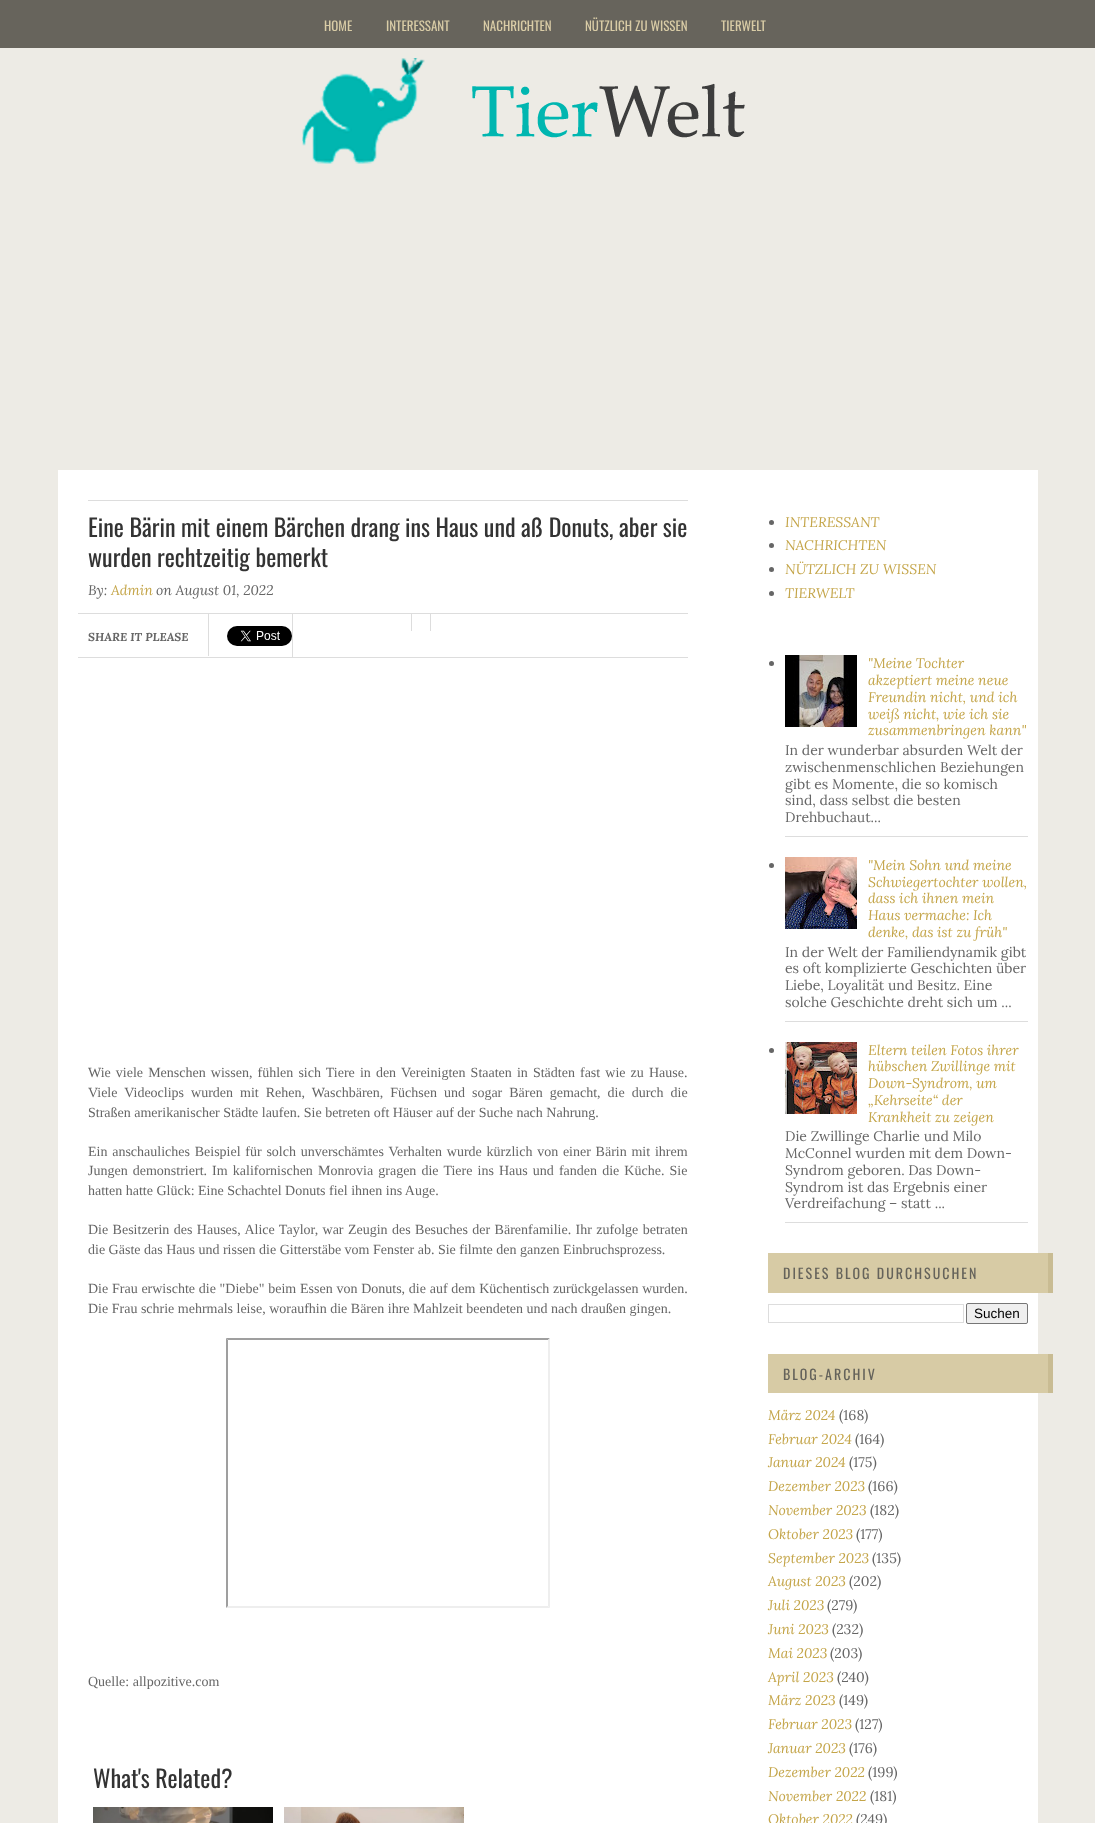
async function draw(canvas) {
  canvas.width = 1095;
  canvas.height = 1823;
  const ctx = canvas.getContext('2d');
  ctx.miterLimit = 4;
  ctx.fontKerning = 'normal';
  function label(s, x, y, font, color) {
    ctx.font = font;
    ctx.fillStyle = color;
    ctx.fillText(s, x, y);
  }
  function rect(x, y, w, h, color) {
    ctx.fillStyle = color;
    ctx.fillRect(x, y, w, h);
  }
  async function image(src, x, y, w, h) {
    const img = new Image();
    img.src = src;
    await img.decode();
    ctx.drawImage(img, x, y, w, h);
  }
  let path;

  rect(0, 0, 1095, 1823, '#edebe5');
  rect(0, 0, 1095, 48, '#67645c');
  label('HOME', 324, 31, '13px Oswald', '#d9cca6');
  label('INTERESSANT', 386, 31, '13px Oswald', '#d9cca6');
  label('NACHRICHTEN', 483, 31, '13px Oswald', '#d9cca6');
  label('NÜTZLICH ZU WISSEN', 585, 31, '13px Oswald', '#d9cca6');
  label('TIERWELT', 721, 31, '13px Oswald', '#d9cca6');
  await image('assets/img1.png', 302, 58, 443, 106);
  rect(58, 470, 980, 1353, '#fff');
  rect(88, 500, 600, 1, '#ddd');
  label('Eine Bärin mit einem Bärchen drang ins Haus und aß Donuts, aber sie', 88, 537, '24px Oswald', '#333');
  label('wurden rechtzeitig bemerkt', 88, 567, '24px Oswald', '#333');
  label('By:', 88, 595, 'italic 14px Lora', '#666');
  label('Admin', 111, 595, 'italic 14px Lora', '#c4a549');
  label('on August 01, 2022', 156, 595, 'italic 14px Lora', '#666');
  rect(78, 613, 610, 1, '#ddd');
  rect(78, 657, 610, 1, '#ddd');
  rect(208, 614, 1, 42, '#ddd');
  await image('assets/img2.png', 227, 626, 65, 20);
  rect(292, 614, 1, 43, '#ddd');
  rect(411, 614, 1, 17, '#ddd');
  rect(430, 614, 1, 17, '#ddd');
  label('SHARE IT PLEASE', 88, 641, 'italic bold 11.6px Lora', '#666');
  ctx.wordSpacing = '1.6px';
  label('Wie viele Menschen wissen, fühlen sich Tiere in den Vereinigten Staaten in Städten fast wie zu Hause.', 88, 1077, '14px Liberation Serif', '#666');
  ctx.wordSpacing = '3.5px';
  label('Viele Videoclips wurden mit Rehen, Waschbären, Füchsen und sogar Bären gemacht, die durch die', 88, 1097, '14px Liberation Serif', '#666');
  ctx.wordSpacing = '0px';
  label('Straßen amerikanischer Städte laufen. Sie betreten oft Häuser auf der Suche nach Nahrung.', 88, 1117, '14px Liberation Serif', '#666');
  ctx.wordSpacing = '1.25px';
  label('Ein anschauliches Beispiel für solch unverschämtes Verhalten wurde kürzlich von einer Bärin mit ihrem', 88, 1156, '14px Liberation Serif', '#666');
  ctx.wordSpacing = '1.6px';
  label('Jungen demonstriert. Im kalifornischen Monrovia gragen die Tiere ins Haus und fanden die Küche. Sie', 88, 1175, '14px Liberation Serif', '#666');
  ctx.wordSpacing = '0px';
  label('hatten hatte Glück: Eine Schachtel Donuts fiel ihnen ins Auge.', 88, 1195, '14px Liberation Serif', '#666');
  ctx.wordSpacing = '0.9px';
  label('Die Besitzerin des Hauses, Alice Taylor, war Zeugin des Besuches der Bärenfamilie. Ihr zufolge betraten', 88, 1234, '14px Liberation Serif', '#666');
  ctx.wordSpacing = '0px';
  label('die Gäste das Haus und rissen die Gitterstäbe vom Fenster ab. Sie filmte den ganzen Einbruchsprozess.', 88, 1254, '14px Liberation Serif', '#666');
  ctx.wordSpacing = '0.25px';
  label('Die Frau erwischte die "Diebe" beim Essen von Donuts, die auf dem Küchentisch zurückgelassen wurden.', 88, 1293, '14px Liberation Serif', '#666');
  ctx.wordSpacing = '0px';
  label('Die Frau schrie mehrmals leise, woraufhin die Bären ihre Mahlzeit beendeten und nach draußen gingen.', 88, 1313, '14px Liberation Serif', '#666');
  ctx.fillStyle = '#9f9f9f';
  path = new Path2D('M226 1338H550L548 1340H228Z');
  ctx.fill(path);
  ctx.fillStyle = '#eee';
  path = new Path2D('M550 1338V1608L548 1606V1340Z');
  ctx.fill(path);
  path = new Path2D('M550 1608H226L228 1606H548Z');
  ctx.fill(path);
  ctx.fillStyle = '#9f9f9f';
  path = new Path2D('M226 1608V1338L228 1340V1606Z');
  ctx.fill(path);
  label('Quelle: allpozitive.com', 88, 1686, '14px Liberation Serif', '#666');
  label('What\'s Related?', 93, 1788, '24px Oswald', '#333');
  await image('assets/img3.png', 93, 1807, 180, 16);
  await image('assets/img4.png', 284, 1807, 180, 16);
  ctx.fillStyle = '#666';
  ctx.beginPath();
  ctx.arc(771.5, 522.5, 2.5, 0, 2 * Math.PI);
  ctx.fill();
  label('INTERESSANT', 785, 527, 'italic 14px Lora', '#c4a549');
  ctx.fillStyle = '#666';
  ctx.beginPath();
  ctx.arc(771.5, 545.5, 2.5, 0, 2 * Math.PI);
  ctx.fill();
  label('NACHRICHTEN', 785, 550, 'italic 14px Lora', '#c4a549');
  ctx.fillStyle = '#666';
  ctx.beginPath();
  ctx.arc(771.5, 569.5, 2.5, 0, 2 * Math.PI);
  ctx.fill();
  label('NÜTZLICH ZU WISSEN', 785, 574, 'italic 14px Lora', '#c4a549');
  ctx.fillStyle = '#666';
  ctx.beginPath();
  ctx.arc(771.5, 593.5, 2.5, 0, 2 * Math.PI);
  ctx.fill();
  label('TIERWELT', 785, 598, 'italic 14px Lora', '#c4a549');
  rect(785, 836, 243, 1, '#ddd');
  ctx.fillStyle = '#666';
  ctx.beginPath();
  ctx.arc(771.5, 663.5, 2.5, 0, 2 * Math.PI);
  ctx.fill();
  await image('assets/img5.png', 785, 655, 72, 72);
  label('"Meine Tochter', 868, 668, 'italic 14px Lora', '#c4a549');
  label('akzeptiert meine neue', 868, 685, 'italic 14px Lora', '#c4a549');
  label('Freundin nicht, und ich', 868, 702, 'italic 14px Lora', '#c4a549');
  label('weiß nicht, wie ich sie', 868, 719, 'italic 14px Lora', '#c4a549');
  label('zusammenbringen kann"', 868, 735, 'italic 14px Lora', '#c4a549');
  label('In der wunderbar absurden Welt der', 785, 755, '14px Lora', '#666');
  label('zwischenmenschlichen Beziehungen', 785, 772, '14px Lora', '#666');
  label('gibt es Momente, die so komisch', 785, 789, '14px Lora', '#666');
  label('sind, dass selbst die besten', 785, 805, '14px Lora', '#666');
  label('Drehbuchaut...', 785, 822, '14px Lora', '#666');
  rect(785, 1021, 243, 1, '#ddd');
  ctx.fillStyle = '#666';
  ctx.beginPath();
  ctx.arc(771.5, 865.5, 2.5, 0, 2 * Math.PI);
  ctx.fill();
  await image('assets/img6.png', 785, 857, 72, 72);
  label('"Mein Sohn und meine', 868, 870, 'italic 14px Lora', '#c4a549');
  label('Schwiegertochter wollen,', 868, 887, 'italic 14px Lora', '#c4a549');
  label('dass ich ihnen mein', 868, 903, 'italic 14px Lora', '#c4a549');
  label('Haus vermache: Ich', 868, 920, 'italic 14px Lora', '#c4a549');
  label('denke, das ist zu früh"', 868, 937, 'italic 14px Lora', '#c4a549');
  label('In der Welt der Familiendynamik gibt', 785, 957, '14px Lora', '#666');
  label('es oft komplizierte Geschichten über', 785, 973, '14px Lora', '#666');
  label('Liebe, Loyalität und Besitz. Eine', 785, 990, '14px Lora', '#666');
  label('solche Geschichte dreht sich um ...', 785, 1007, '14px Lora', '#666');
  rect(785, 1222, 243, 1, '#ddd');
  ctx.fillStyle = '#666';
  ctx.beginPath();
  ctx.arc(771.5, 1050.5, 2.5, 0, 2 * Math.PI);
  ctx.fill();
  await image('assets/img7.png', 785, 1042, 72, 72);
  label('Eltern teilen Fotos ihrer', 868, 1055, 'italic 14px Lora', '#c4a549');
  label('hübschen Zwillinge mit', 868, 1071, 'italic 14px Lora', '#c4a549');
  label('Down-Syndrom, um', 868, 1088, 'italic 14px Lora', '#c4a549');
  label('„Kehrseite“ der', 868, 1105, 'italic 14px Lora', '#c4a549');
  label('Krankheit zu zeigen', 868, 1122, 'italic 14px Lora', '#c4a549');
  label('Die Zwillinge Charlie und Milo', 785, 1141, '14px Lora', '#666');
  label('McConnel wurden mit dem Down-', 785, 1158, '14px Lora', '#666');
  label('Syndrom geboren. Das Down-', 785, 1175, '14px Lora', '#666');
  label('Syndrom ist das Ergebnis einer', 785, 1192, '14px Lora', '#666');
  label('Verdreifachung – statt ...', 785, 1208, '14px Lora', '#666');
  rect(768, 1253, 280, 40, '#d7cba5');
  rect(1048, 1253, 5, 40, '#c9bc93');
  ctx.letterSpacing = '2px';
  label('DIESES BLOG DURCHSUCHEN', 783, 1279, '14px Oswald', '#65635b');
  ctx.strokeStyle = '#ddd';
  ctx.strokeRect(768.5, 1304.5, 195, 18);
  ctx.fillStyle = '#efefef';
  ctx.beginPath();
  ctx.roundRect(966.5, 1303.5, 61, 20, 1.5);
  ctx.fill();
  ctx.strokeStyle = '#767676';
  ctx.stroke();
  ctx.letterSpacing = '0px';
  label('Suchen', 974, 1318, '13.5px Liberation Sans', '#000');
  rect(768, 1354, 280, 39, '#d7cba5');
  rect(1048, 1354, 5, 39, '#c9bc93');
  ctx.letterSpacing = '2px';
  label('BLOG-ARCHIV', 783, 1380, '14px Oswald', '#65635b');
  ctx.letterSpacing = '0px';
  label('März 2024', 768, 1420, 'italic 14px Lora', '#c4a549');
  label('(168)', 839, 1420, '14px Lora', '#666');
  label('Februar 2024', 768, 1444, 'italic 14px Lora', '#c4a549');
  label('(164)', 855, 1444, '14px Lora', '#666');
  label('Januar 2024', 768, 1467, 'italic 14px Lora', '#c4a549');
  label('(175)', 849, 1467, '14px Lora', '#666');
  label('Dezember 2023', 768, 1491, 'italic 14px Lora', '#c4a549');
  label('(166)', 868, 1491, '14px Lora', '#666');
  label('November 2023', 768, 1515, 'italic 14px Lora', '#c4a549');
  label('(182)', 870, 1515, '14px Lora', '#666');
  label('Oktober 2023', 768, 1539, 'italic 14px Lora', '#c4a549');
  label('(177)', 856, 1539, '14px Lora', '#666');
  label('September 2023', 768, 1563, 'italic 14px Lora', '#c4a549');
  label('(135)', 872, 1563, '14px Lora', '#666');
  label('August 2023', 768, 1586, 'italic 14px Lora', '#c4a549');
  label('(202)', 849, 1586, '14px Lora', '#666');
  label('Juli 2023', 768, 1610, 'italic 14px Lora', '#c4a549');
  label('(279)', 827, 1610, '14px Lora', '#666');
  label('Juni 2023', 768, 1634, 'italic 14px Lora', '#c4a549');
  label('(232)', 832, 1634, '14px Lora', '#666');
  label('Mai 2023', 768, 1658, 'italic 14px Lora', '#c4a549');
  label('(203)', 830, 1658, '14px Lora', '#666');
  label('April 2023', 768, 1682, 'italic 14px Lora', '#c4a549');
  label('(240)', 837, 1682, '14px Lora', '#666');
  label('März 2023', 768, 1705, 'italic 14px Lora', '#c4a549');
  label('(149)', 839, 1705, '14px Lora', '#666');
  label('Februar 2023', 768, 1729, 'italic 14px Lora', '#c4a549');
  label('(127)', 855, 1729, '14px Lora', '#666');
  label('Januar 2023', 768, 1753, 'italic 14px Lora', '#c4a549');
  label('(176)', 849, 1753, '14px Lora', '#666');
  label('Dezember 2022', 768, 1777, 'italic 14px Lora', '#c4a549');
  label('(199)', 868, 1777, '14px Lora', '#666');
  label('November 2022', 768, 1801, 'italic 14px Lora', '#c4a549');
  label('(181)', 870, 1801, '14px Lora', '#666');
  label('Oktober 2022', 768, 1824, 'italic 14px Lora', '#c4a549');
  label('(249)', 856, 1824, '14px Lora', '#666');
}

draw(document.querySelector('canvas'));
